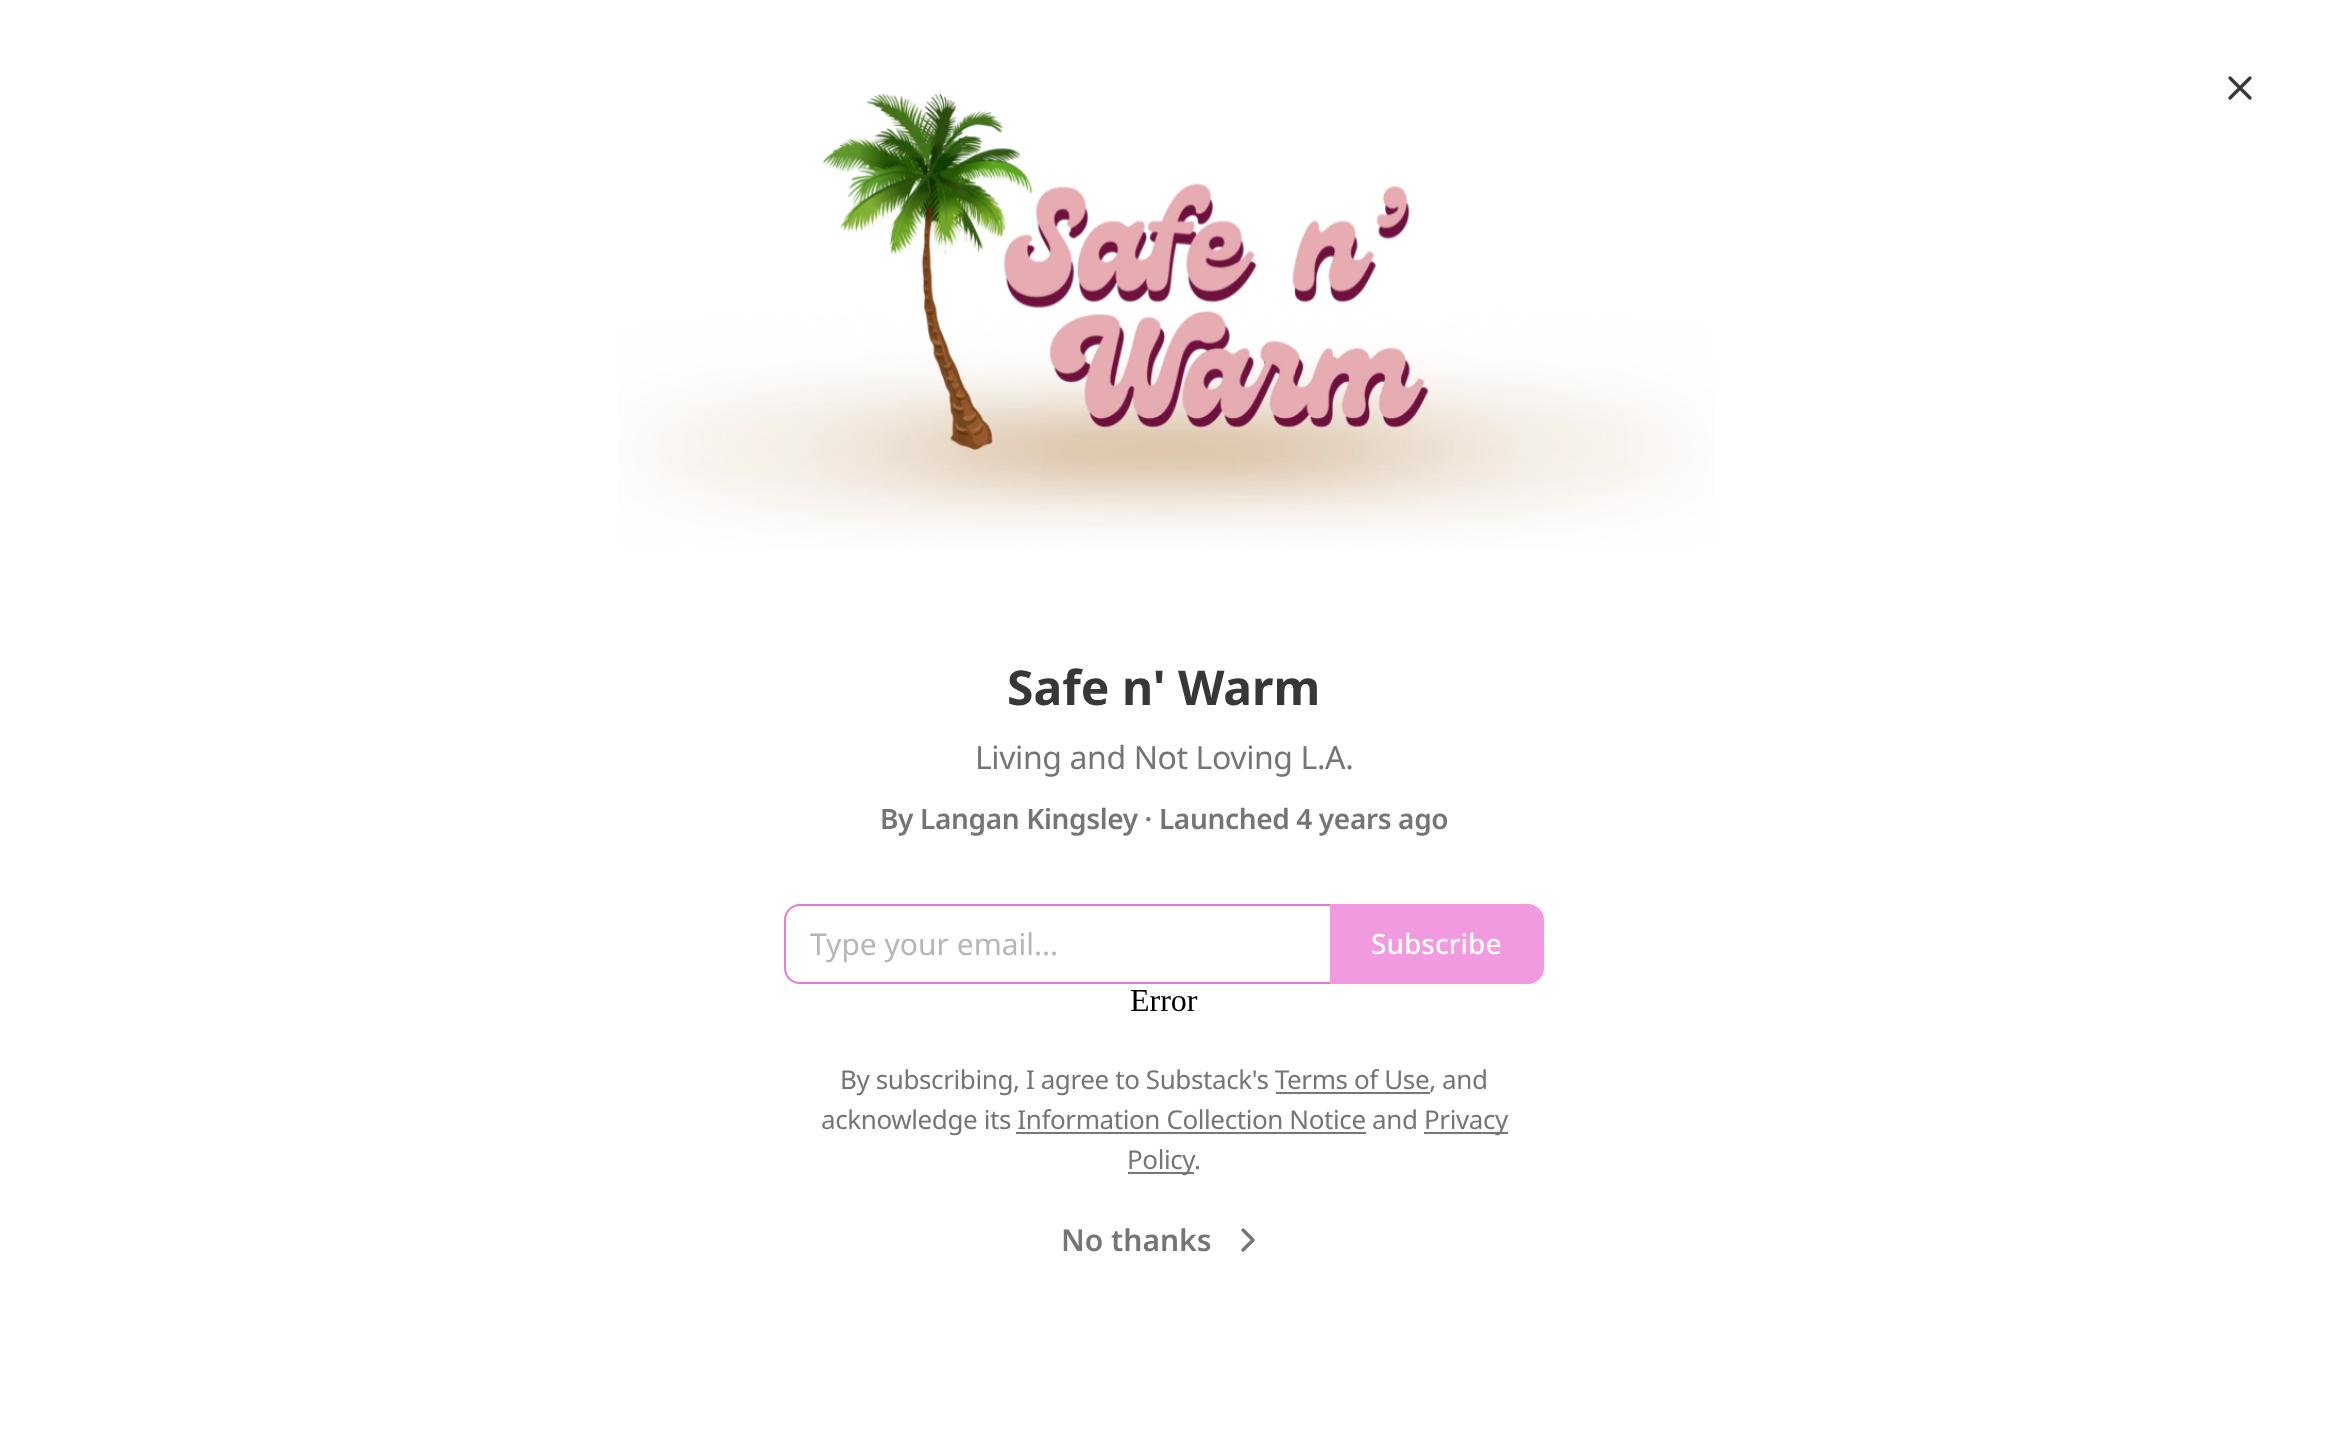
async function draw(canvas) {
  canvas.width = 2328;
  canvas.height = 1445;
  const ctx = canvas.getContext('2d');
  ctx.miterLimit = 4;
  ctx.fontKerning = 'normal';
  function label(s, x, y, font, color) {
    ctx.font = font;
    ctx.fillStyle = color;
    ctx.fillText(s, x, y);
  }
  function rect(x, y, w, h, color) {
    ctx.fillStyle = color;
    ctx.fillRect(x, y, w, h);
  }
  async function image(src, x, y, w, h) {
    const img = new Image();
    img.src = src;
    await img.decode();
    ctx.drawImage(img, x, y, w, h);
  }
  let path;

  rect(0, 0, 2328, 1445, '#fff');
  path = new Path2D('M2250 78L2230 98M2230 78L2250 98');
  ctx.strokeStyle = '#363737';
  ctx.lineWidth = 3.3;
  ctx.lineCap = 'round';
  ctx.lineJoin = 'round';
  ctx.stroke(path);
  await image('assets/img1.png', 618, 94, 1097, 453);
  label('Safe n\' Warm', 1007, 705, 'bold 48px Noto Sans', '#363737');
  ctx.letterSpacing = '-0.4px';
  label('Living and Not Loving L.A.', 975, 769, '32px Noto Sans', '#757575');
  ctx.letterSpacing = '-0.35px';
  label('By Langan Kingsley · Launched 4 years ago', 880, 829, '600 28px Noto Sans', '#757575');
  ctx.fillStyle = '#ec78d5';
  path = new Path2D('M800 904H1330V984H800C791 984 784 977 784 968V920C784 911 791 904 800 904ZM800 906H1330V982H800C792 982 786 976 786 968V920C786 912 792 906 800 906Z');
  ctx.fill(path, 'evenodd');
  ctx.letterSpacing = '0px';
  label('Type your email...', 810, 955, '30px Noto Sans', '#b6b6b6');
  ctx.fillStyle = '#f19ae0';
  ctx.beginPath();
  ctx.roundRect(1331, 905, 212, 78, [0, 15, 15, 0]);
  ctx.fill();
  ctx.strokeStyle = '#f19ae0';
  ctx.lineWidth = 2;
  ctx.lineJoin = 'miter';
  ctx.stroke();
  label('Subscribe', 1371, 954, '500 28px Noto Sans', '#fff');
  label('Error', 1130, 1011, '32px Liberation Serif', '#000');
  ctx.letterSpacing = '-0.4px';
  label('By subscribing, I agree to Substack\'s Terms of Use, and', 840, 1089, '26px Noto Sans', '#757575');
  rect(1276, 1092, 154, 2, '#777');
  label('acknowledge its Information Collection Notice and', 821, 1129, '26px Noto Sans', '#757575');
  rect(1424, 1132, 84, 2, '#777');
  label('Privacy', 1424, 1129, '26px Noto Sans', '#757575');
  rect(1016, 1132, 350, 2, '#777');
  rect(1128, 1172, 66, 2, '#777');
  label('Policy', 1127, 1169, '26px Noto Sans', '#757575');
  label('.', 1194, 1169, '26px Noto Sans', '#757575');
  ctx.letterSpacing = '0px';
  label('No thanks', 1061, 1251, '600 30px Noto Sans', '#757575');
  path = new Path2D('M1243 1250L1253 1240L1243 1230');
  ctx.strokeStyle = '#757575';
  ctx.lineWidth = 3.3;
  ctx.lineJoin = 'round';
  ctx.stroke(path);
}

draw(document.querySelector('canvas'));
